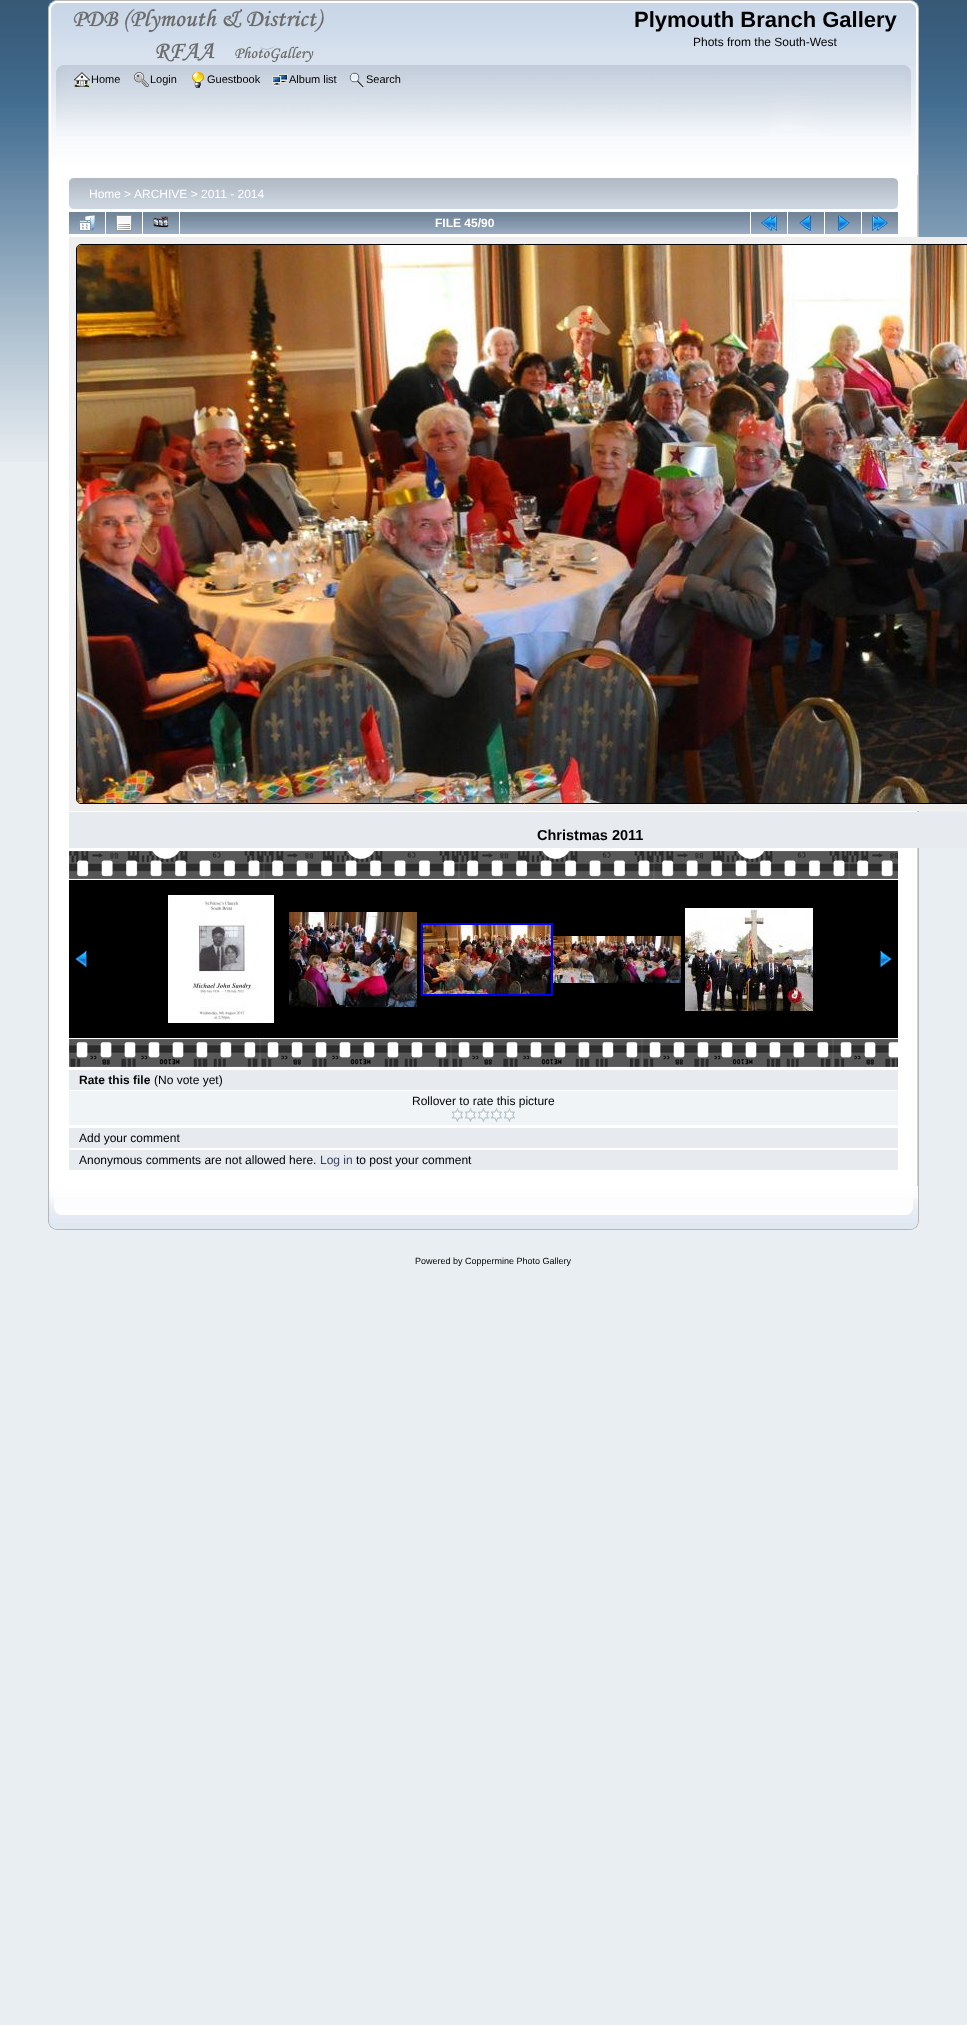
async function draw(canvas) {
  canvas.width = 967;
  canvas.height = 2025;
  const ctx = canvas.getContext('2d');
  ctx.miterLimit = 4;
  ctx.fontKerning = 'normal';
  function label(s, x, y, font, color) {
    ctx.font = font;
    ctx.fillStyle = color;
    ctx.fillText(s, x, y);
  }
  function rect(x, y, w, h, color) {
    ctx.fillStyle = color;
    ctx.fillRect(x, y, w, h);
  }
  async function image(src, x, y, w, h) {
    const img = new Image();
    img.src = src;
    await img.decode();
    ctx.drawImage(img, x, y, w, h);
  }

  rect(0, 0, 967, 2025, '#e9eef2');
  await image('assets/img1.png', 0, 0, 967, 462);
  await image('assets/img2.png', 48, 0, 863, 65);
  await image('assets/img3.png', 911, 0, 8, 65);
  await image('assets/img4.png', 73, 9, 251, 54);
  label('Plymouth Branch Gallery', 634, 27, 'bold 22px Liberation Sans', '#000');
  label('Phots from the South-West', 693, 46, '12px Liberation Sans', '#000');
  await image('assets/img5.png', 48, 65, 856, 110);
  await image('assets/img6.png', 904, 65, 15, 110);
  await image('assets/img7.png', 74, 72, 16, 16);
  label('Home', 91, 83, '11px Liberation Sans', '#000');
  await image('assets/img8.png', 134, 72, 15, 15);
  label('Login', 150, 83, '11px Liberation Sans', '#000');
  await image('assets/img9.png', 192, 72, 12, 16);
  label('Guestbook', 207, 83, '11px Liberation Sans', '#000');
  await image('assets/img10.png', 272, 74, 16, 12);
  label('Album list', 289, 83, '11px Liberation Sans', '#000');
  await image('assets/img11.png', 349, 72, 16, 15);
  label('Search', 366, 83, '11px Liberation Sans', '#000');
  rect(49, 175, 868, 1011, '#fff');
  rect(48, 175, 1, 1011, '#b7b7b7');
  await image('assets/img12.png', 917, 175, 2, 1011);
  await image('assets/img13.png', 69, 178, 824, 31);
  await image('assets/img14.png', 893, 178, 5, 31);
  label('Home', 89, 198, '12px Liberation Sans', '#fff');
  label('>', 124, 198, '12px Liberation Sans', '#fff');
  label('ARCHIVE > 2011 - 2014', 134, 198, '12px Liberation Sans', '#fff');
  await image('assets/img15.png', 69, 212, 36, 22);
  await image('assets/img16.png', 79, 215, 16, 16);
  await image('assets/img15.png', 106, 212, 36, 22);
  await image('assets/img17.png', 116, 215, 16, 16);
  await image('assets/img15.png', 143, 212, 36, 22);
  await image('assets/img18.png', 153, 216, 16, 12);
  await image('assets/img19.png', 180, 212, 570, 22);
  label('FILE 45/90', 435, 227, 'bold 12px Liberation Sans', '#fff');
  await image('assets/img15.png', 751, 212, 36, 22);
  await image('assets/img20.png', 761, 215, 16, 16);
  await image('assets/img15.png', 788, 212, 36, 22);
  await image('assets/img21.png', 799, 215, 12, 16);
  await image('assets/img15.png', 825, 212, 36, 22);
  await image('assets/img22.png', 838, 215, 12, 16);
  await image('assets/img15.png', 862, 212, 36, 22);
  await image('assets/img23.png', 872, 215, 16, 16);
  rect(69, 237, 898, 574, '#efefef');
  ctx.beginPath();
  ctx.roundRect(76.5, 244.5, 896, 559, 4.5);
  ctx.strokeStyle = '#000';
  ctx.stroke();
  await image('assets/img24.png', 77, 245, 890, 558);
  rect(69, 812, 898, 36, '#e7eaef');
  label('Christmas 2011', 537, 840, 'bold 14.5px Liberation Sans', '#000');
  await image('assets/img25.png', 69, 851, 829, 28);
  rect(69, 880, 829, 158, '#000');
  await image('assets/img26.png', 75, 951, 12, 16);
  await image('assets/img27.png', 168, 895, 106, 128);
  await image('assets/img28.png', 289, 912, 128, 95);
  ctx.strokeStyle = '#00f';
  ctx.lineWidth = 2;
  ctx.strokeRect(422, 924, 130, 71);
  await image('assets/img29.png', 423, 925, 128, 69);
  await image('assets/img30.png', 553, 936, 128, 47);
  await image('assets/img31.png', 685, 908, 128, 103);
  await image('assets/img32.png', 880, 951, 12, 16);
  await image('assets/img33.png', 69, 1039, 829, 28);
  rect(69, 1070, 829, 20, '#e7eaef');
  label('Rate this file', 79, 1084, 'bold 12px Liberation Sans', '#000');
  label('(No vote yet)', 154, 1084, '12px Liberation Sans', '#000');
  rect(69, 1091, 829, 34, '#f0f4f7');
  label('Rollover to rate this picture', 412, 1105, '12px Liberation Sans', '#000');
  await image('assets/img34.png', 451, 1108, 13, 14);
  await image('assets/img34.png', 464, 1108, 13, 14);
  await image('assets/img34.png', 477, 1108, 13, 14);
  await image('assets/img34.png', 490, 1108, 13, 14);
  await image('assets/img34.png', 503, 1108, 13, 14);
  rect(69, 1128, 829, 20, '#e7eaef');
  label('Add your comment', 79, 1142, '12px Liberation Sans', '#000');
  rect(69, 1150, 829, 20, '#e7eaef');
  label('Anonymous comments are not allowed here.', 79, 1164, '12px Liberation Sans', '#000');
  label('Log in', 320, 1164, '12px Liberation Sans', '#346');
  label('to post your comment', 356, 1164, '12px Liberation Sans', '#000');
  await image('assets/img35.png', 48, 1186, 858, 44);
  await image('assets/img36.png', 906, 1186, 13, 44);
  label('Powered by Coppermine Photo Gallery', 415, 1264, '9px Liberation Sans', '#000');
}

draw(document.querySelector('canvas'));
